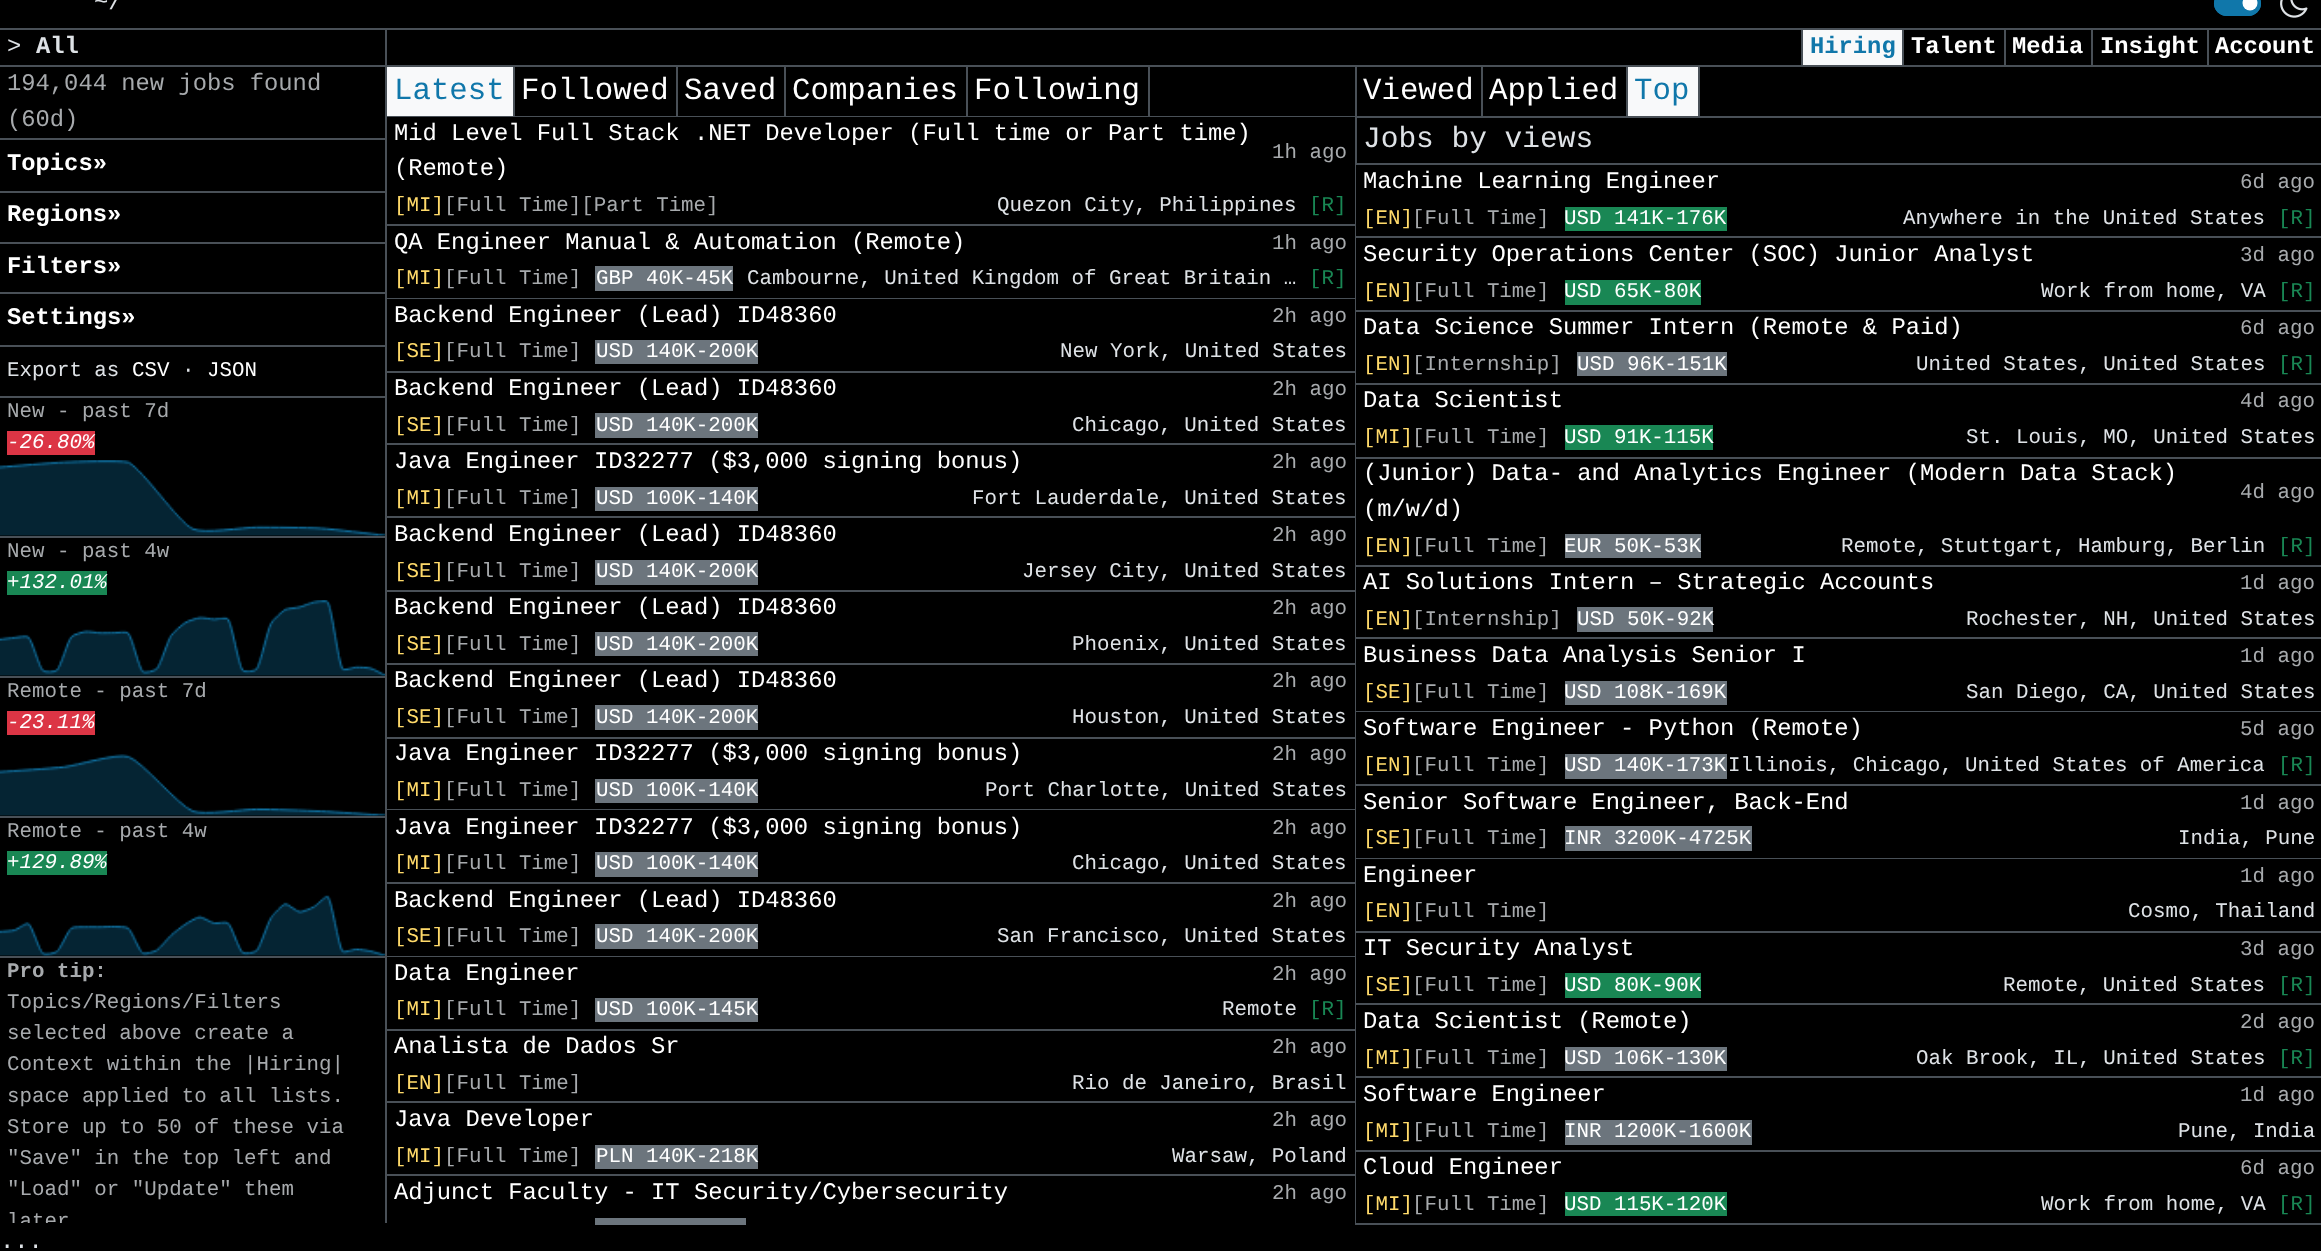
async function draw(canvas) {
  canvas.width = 2321;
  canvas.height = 1251;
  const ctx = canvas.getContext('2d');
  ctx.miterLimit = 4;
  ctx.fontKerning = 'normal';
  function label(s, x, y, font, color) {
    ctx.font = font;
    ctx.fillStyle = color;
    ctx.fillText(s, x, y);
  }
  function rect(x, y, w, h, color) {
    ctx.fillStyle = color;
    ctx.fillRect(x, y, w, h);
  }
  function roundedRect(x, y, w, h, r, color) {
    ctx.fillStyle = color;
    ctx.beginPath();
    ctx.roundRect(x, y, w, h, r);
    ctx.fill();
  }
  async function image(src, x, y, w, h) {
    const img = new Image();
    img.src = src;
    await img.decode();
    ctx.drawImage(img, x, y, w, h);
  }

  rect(0, 0, 2321, 1251, '#000');
  rect(0, 28, 2321, 2, '#495057');
  label('~/', 94, 9, '23.8px Liberation Mono', '#dee2e6');
  roundedRect(2214, -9, 47, 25, 12.5, '#1077aa');
  ctx.fillStyle = '#fff';
  ctx.beginPath();
  ctx.arc(2250, 3, 7.5, 0, 2 * Math.PI);
  ctx.fill();
  ctx.beginPath();
  ctx.roundRect(2215, -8, 45, 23, 11.5);
  ctx.strokeStyle = '#1077aa';
  ctx.lineWidth = 2;
  ctx.stroke();
  await image('assets/img1.png', 2280, 0, 28, 18);
  rect(385, 30, 2, 1193, '#495057');
  rect(0, 65, 385, 2, '#495057');
  label('>', 7, 53, '23.8px Liberation Mono', '#dee2e6');
  label('All', 36, 53, 'bold 23.8px Liberation Mono', '#dee2e6');
  rect(0, 138, 385, 2, '#495057');
  label('194,044 new jobs found', 7, 90, '23.8px Liberation Mono', '#a7aaad');
  label('(60d)', 7, 126, '23.8px Liberation Mono', '#a7aaad');
  rect(0, 191, 385, 2, '#495057');
  label('Topics»', 7, 170, 'bold 23.8px Liberation Mono', '#fff');
  rect(0, 242, 385, 2, '#495057');
  label('Regions»', 7, 221, 'bold 23.8px Liberation Mono', '#fff');
  rect(0, 292, 385, 2, '#495057');
  label('Filters»', 7, 273, 'bold 23.8px Liberation Mono', '#fff');
  rect(0, 345, 385, 2, '#495057');
  label('Settings»', 7, 324, 'bold 23.8px Liberation Mono', '#fff');
  rect(0, 396, 385, 2, '#495057');
  label('Export as', 7, 376, '20.8px Liberation Mono', '#dee2e6');
  label('CSV', 132, 376, '20.8px Liberation Mono', '#fff');
  label('·', 182, 376, '20.8px Liberation Mono', '#dee2e6');
  label('JSON', 207, 376, '20.8px Liberation Mono', '#fff');
  label('New - past 7d', 7, 417, '20.8px Liberation Mono', '#a7aaad');
  rect(7, 431, 88, 24, '#dc3545');
  label('-26.80%', 7, 448, 'italic 20.8px Liberation Mono', '#fff');
  rect(0, 536, 385, 2, '#495057');
  await image('assets/img2.png', 0, 460, 385, 76);
  label('New - past 4w', 7, 557, '20.8px Liberation Mono', '#a7aaad');
  rect(7, 571, 100, 24, '#198754');
  label('+132.01%', 7, 588, 'italic 20.8px Liberation Mono', '#fff');
  rect(0, 676, 385, 2, '#495057');
  await image('assets/img3.png', 0, 600, 385, 76);
  label('Remote - past 7d', 7, 697, '20.8px Liberation Mono', '#a7aaad');
  rect(7, 711, 88, 24, '#dc3545');
  label('-23.11%', 7, 728, 'italic 20.8px Liberation Mono', '#fff');
  rect(0, 816, 385, 2, '#495057');
  await image('assets/img4.png', 0, 754, 385, 62);
  label('Remote - past 4w', 7, 837, '20.8px Liberation Mono', '#a7aaad');
  rect(7, 851, 100, 24, '#198754');
  label('+129.89%', 7, 868, 'italic 20.8px Liberation Mono', '#fff');
  rect(0, 956, 385, 2, '#495057');
  await image('assets/img5.png', 0, 895, 385, 61);
  label('Pro tip:', 7, 977, 'bold 20.8px Liberation Mono', '#a7aaad');
  label('Topics/Regions/Filters', 7, 1008, '20.8px Liberation Mono', '#a7aaad');
  label('selected above create a', 7, 1039, '20.8px Liberation Mono', '#a7aaad');
  label('Context within the |Hiring|', 7, 1070, '20.8px Liberation Mono', '#a7aaad');
  label('space applied to all lists.', 7, 1102, '20.8px Liberation Mono', '#a7aaad');
  label('Store up to 50 of these via', 7, 1133, '20.8px Liberation Mono', '#a7aaad');
  label('"Save" in the top left and', 7, 1164, '20.8px Liberation Mono', '#a7aaad');
  label('"Load" or "Update" them', 7, 1195, '20.8px Liberation Mono', '#a7aaad');
  ctx.save();
  ctx.beginPath();
  ctx.rect(0, 30, 385, 1193);
  ctx.clip();
  label('later', 7, 1227, '20.8px Liberation Mono', '#a7aaad');
  ctx.restore();
  rect(387, 65, 1934, 2, '#495057');
  rect(1803, 30, 99, 35, '#f8f9fa');
  rect(1801, 30, 2, 35, '#495057');
  label('Hiring', 1810, 53, 'bold 23.8px Liberation Mono', '#1077aa');
  rect(1902, 30, 2, 35, '#495057');
  label('Talent', 1911, 53, 'bold 23.8px Liberation Mono', '#fff');
  rect(2004, 30, 2, 35, '#495057');
  label('Media', 2012, 53, 'bold 23.8px Liberation Mono', '#fff');
  rect(2091, 30, 2, 35, '#495057');
  label('Insight', 2100, 53, 'bold 23.8px Liberation Mono', '#fff');
  rect(2207, 30, 2, 35, '#495057');
  label('Account', 2215, 53, 'bold 23.8px Liberation Mono', '#fff');
  rect(1355, 67, 2, 1158, '#495057');
  rect(387, 116, 968, 1, '#495057');
  rect(387, 67, 126, 49, '#f8f9fa');
  rect(513, 67, 2, 49, '#495057');
  label('Latest', 394, 99, '30.75px Liberation Mono', '#1077aa');
  rect(676, 67, 2, 49, '#495057');
  label('Followed', 521, 99, '30.75px Liberation Mono', '#fff');
  rect(784, 67, 2, 49, '#495057');
  label('Saved', 684, 99, '30.75px Liberation Mono', '#fff');
  rect(966, 67, 2, 49, '#495057');
  label('Companies', 792, 99, '30.75px Liberation Mono', '#fff');
  rect(1148, 67, 2, 49, '#495057');
  label('Following', 974, 99, '30.75px Liberation Mono', '#fff');
  rect(387, 224, 968, 2, '#495057');
  label('Mid Level Full Stack .NET Developer (Full time or Part time)', 394, 140, '23.8px Liberation Mono', '#fff');
  label('(Remote)', 394, 175, '23.8px Liberation Mono', '#fff');
  label('1h ago', 1272, 158, '20.8px Liberation Mono', '#a7aaad');
  label('[MI]', 394, 211, '20.8px Liberation Mono', '#ffda6a');
  label('[Full Time][Part Time]', 444, 211, '20.8px Liberation Mono', '#a7aaad');
  label('Quezon City, Philippines', 997, 211, '20.8px Liberation Mono', '#dee2e6');
  label('[R]', 1309, 211, '20.8px Liberation Mono', '#198754');
  rect(387, 298, 968, 1, '#495057');
  label('QA Engineer Manual & Automation (Remote)', 394, 249, '23.8px Liberation Mono', '#fff');
  label('1h ago', 1272, 249, '20.8px Liberation Mono', '#a7aaad');
  label('[MI]', 394, 284, '20.8px Liberation Mono', '#ffda6a');
  label('[Full Time]', 444, 284, '20.8px Liberation Mono', '#a7aaad');
  rect(595, 266, 138, 25, '#6c757d');
  label('GBP 40K-45K', 596, 284, '20.8px Liberation Mono', '#fff');
  label('Cambourne, United Kingdom of Great Britain …', 747, 284, '20.8px Liberation Mono', '#dee2e6');
  label('[R]', 1309, 284, '20.8px Liberation Mono', '#198754');
  rect(387, 371, 968, 2, '#495057');
  label('Backend Engineer (Lead) ID48360', 394, 322, '23.8px Liberation Mono', '#fff');
  label('2h ago', 1272, 322, '20.8px Liberation Mono', '#a7aaad');
  label('[SE]', 394, 357, '20.8px Liberation Mono', '#ffda6a');
  label('[Full Time]', 444, 357, '20.8px Liberation Mono', '#a7aaad');
  rect(595, 340, 163, 24, '#6c757d');
  label('USD 140K-200K', 596, 357, '20.8px Liberation Mono', '#fff');
  label('New York, United States', 1060, 357, '20.8px Liberation Mono', '#dee2e6');
  rect(387, 443, 968, 2, '#495057');
  label('Backend Engineer (Lead) ID48360', 394, 395, '23.8px Liberation Mono', '#fff');
  label('2h ago', 1272, 395, '20.8px Liberation Mono', '#a7aaad');
  label('[SE]', 394, 431, '20.8px Liberation Mono', '#ffda6a');
  label('[Full Time]', 444, 431, '20.8px Liberation Mono', '#a7aaad');
  rect(595, 413, 163, 25, '#6c757d');
  label('USD 140K-200K', 596, 431, '20.8px Liberation Mono', '#fff');
  label('Chicago, United States', 1072, 431, '20.8px Liberation Mono', '#dee2e6');
  rect(387, 516, 968, 2, '#495057');
  label('Java Engineer ID32277 ($3,000 signing bonus)', 394, 468, '23.8px Liberation Mono', '#fff');
  label('2h ago', 1272, 468, '20.8px Liberation Mono', '#a7aaad');
  label('[MI]', 394, 504, '20.8px Liberation Mono', '#ffda6a');
  label('[Full Time]', 444, 504, '20.8px Liberation Mono', '#a7aaad');
  rect(595, 487, 163, 24, '#6c757d');
  label('USD 100K-140K', 596, 504, '20.8px Liberation Mono', '#fff');
  label('Fort Lauderdale, United States', 972, 504, '20.8px Liberation Mono', '#dee2e6');
  rect(387, 590, 968, 2, '#495057');
  label('Backend Engineer (Lead) ID48360', 394, 541, '23.8px Liberation Mono', '#fff');
  label('2h ago', 1272, 541, '20.8px Liberation Mono', '#a7aaad');
  label('[SE]', 394, 577, '20.8px Liberation Mono', '#ffda6a');
  label('[Full Time]', 444, 577, '20.8px Liberation Mono', '#a7aaad');
  rect(595, 560, 163, 25, '#6c757d');
  label('USD 140K-200K', 596, 577, '20.8px Liberation Mono', '#fff');
  label('Jersey City, United States', 1022, 577, '20.8px Liberation Mono', '#dee2e6');
  rect(387, 663, 968, 2, '#495057');
  label('Backend Engineer (Lead) ID48360', 394, 614, '23.8px Liberation Mono', '#fff');
  label('2h ago', 1272, 614, '20.8px Liberation Mono', '#a7aaad');
  label('[SE]', 394, 650, '20.8px Liberation Mono', '#ffda6a');
  label('[Full Time]', 444, 650, '20.8px Liberation Mono', '#a7aaad');
  rect(595, 632, 163, 24, '#6c757d');
  label('USD 140K-200K', 596, 650, '20.8px Liberation Mono', '#fff');
  label('Phoenix, United States', 1072, 650, '20.8px Liberation Mono', '#dee2e6');
  rect(387, 737, 968, 2, '#495057');
  label('Backend Engineer (Lead) ID48360', 394, 687, '23.8px Liberation Mono', '#fff');
  label('2h ago', 1272, 687, '20.8px Liberation Mono', '#a7aaad');
  label('[SE]', 394, 723, '20.8px Liberation Mono', '#ffda6a');
  label('[Full Time]', 444, 723, '20.8px Liberation Mono', '#a7aaad');
  rect(595, 705, 163, 25, '#6c757d');
  label('USD 140K-200K', 596, 723, '20.8px Liberation Mono', '#fff');
  label('Houston, United States', 1072, 723, '20.8px Liberation Mono', '#dee2e6');
  rect(387, 809, 968, 1, '#495057');
  label('Java Engineer ID32277 ($3,000 signing bonus)', 394, 760, '23.8px Liberation Mono', '#fff');
  label('2h ago', 1272, 760, '20.8px Liberation Mono', '#a7aaad');
  label('[MI]', 394, 796, '20.8px Liberation Mono', '#ffda6a');
  label('[Full Time]', 444, 796, '20.8px Liberation Mono', '#a7aaad');
  rect(595, 779, 163, 24, '#6c757d');
  label('USD 100K-140K', 596, 796, '20.8px Liberation Mono', '#fff');
  label('Port Charlotte, United States', 985, 796, '20.8px Liberation Mono', '#dee2e6');
  rect(387, 882, 968, 2, '#495057');
  label('Java Engineer ID32277 ($3,000 signing bonus)', 394, 834, '23.8px Liberation Mono', '#fff');
  label('2h ago', 1272, 834, '20.8px Liberation Mono', '#a7aaad');
  label('[MI]', 394, 869, '20.8px Liberation Mono', '#ffda6a');
  label('[Full Time]', 444, 869, '20.8px Liberation Mono', '#a7aaad');
  rect(595, 852, 163, 25, '#6c757d');
  label('USD 100K-140K', 596, 869, '20.8px Liberation Mono', '#fff');
  label('Chicago, United States', 1072, 869, '20.8px Liberation Mono', '#dee2e6');
  rect(387, 956, 968, 1, '#495057');
  label('Backend Engineer (Lead) ID48360', 394, 907, '23.8px Liberation Mono', '#fff');
  label('2h ago', 1272, 907, '20.8px Liberation Mono', '#a7aaad');
  label('[SE]', 394, 942, '20.8px Liberation Mono', '#ffda6a');
  label('[Full Time]', 444, 942, '20.8px Liberation Mono', '#a7aaad');
  rect(595, 924, 163, 25, '#6c757d');
  label('USD 140K-200K', 596, 942, '20.8px Liberation Mono', '#fff');
  label('San Francisco, United States', 997, 942, '20.8px Liberation Mono', '#dee2e6');
  rect(387, 1029, 968, 2, '#495057');
  label('Data Engineer', 394, 980, '23.8px Liberation Mono', '#fff');
  label('2h ago', 1272, 980, '20.8px Liberation Mono', '#a7aaad');
  label('[MI]', 394, 1015, '20.8px Liberation Mono', '#ffda6a');
  label('[Full Time]', 444, 1015, '20.8px Liberation Mono', '#a7aaad');
  rect(595, 998, 163, 24, '#6c757d');
  label('USD 100K-145K', 596, 1015, '20.8px Liberation Mono', '#fff');
  label('Remote', 1222, 1015, '20.8px Liberation Mono', '#dee2e6');
  label('[R]', 1309, 1015, '20.8px Liberation Mono', '#198754');
  rect(387, 1101, 968, 2, '#495057');
  label('Analista de Dados Sr', 394, 1053, '23.8px Liberation Mono', '#fff');
  label('2h ago', 1272, 1053, '20.8px Liberation Mono', '#a7aaad');
  label('[EN]', 394, 1089, '20.8px Liberation Mono', '#ffda6a');
  label('[Full Time]', 444, 1089, '20.8px Liberation Mono', '#a7aaad');
  label('Rio de Janeiro, Brasil', 1072, 1089, '20.8px Liberation Mono', '#dee2e6');
  rect(387, 1174, 968, 2, '#495057');
  label('Java Developer', 394, 1126, '23.8px Liberation Mono', '#fff');
  label('2h ago', 1272, 1126, '20.8px Liberation Mono', '#a7aaad');
  label('[MI]', 394, 1162, '20.8px Liberation Mono', '#ffda6a');
  label('[Full Time]', 444, 1162, '20.8px Liberation Mono', '#a7aaad');
  rect(595, 1145, 163, 24, '#6c757d');
  label('PLN 140K-218K', 596, 1162, '20.8px Liberation Mono', '#fff');
  label('Warsaw, Poland', 1172, 1162, '20.8px Liberation Mono', '#dee2e6');
  label('Adjunct Faculty - IT Security/Cybersecurity', 394, 1199, '23.8px Liberation Mono', '#fff');
  label('2h ago', 1272, 1199, '20.8px Liberation Mono', '#a7aaad');
  rect(595, 1218, 151, 7, '#6c757d');
  rect(1356, 116, 965, 2, '#495057');
  rect(1481, 67, 2, 49, '#495057');
  label('Viewed', 1363, 99, '30.75px Liberation Mono', '#fff');
  rect(1626, 67, 2, 49, '#495057');
  label('Applied', 1489, 99, '30.75px Liberation Mono', '#fff');
  rect(1628, 67, 70, 49, '#f8f9fa');
  rect(1698, 67, 2, 49, '#495057');
  label('Top', 1634, 99, '30.75px Liberation Mono', '#1077aa');
  rect(1356, 163, 965, 2, '#495057');
  label('Jobs by views', 1363, 147, '29.5px Liberation Mono', '#dee2e6');
  rect(1356, 165, 1, 71, '#000');
  rect(1356, 236, 965, 2, '#495057');
  label('Machine Learning Engineer', 1363, 188, '23.8px Liberation Mono', '#fff');
  label('6d ago', 2240, 188, '20.8px Liberation Mono', '#a7aaad');
  label('[EN]', 1363, 224, '20.8px Liberation Mono', '#ffda6a');
  label('[Full Time]', 1412, 224, '20.8px Liberation Mono', '#a7aaad');
  rect(1565, 207, 162, 24, '#198754');
  label('USD 141K-176K', 1564, 224, '20.8px Liberation Mono', '#fff');
  label('Anywhere in the United States', 1903, 224, '20.8px Liberation Mono', '#dee2e6');
  label('[R]', 2278, 224, '20.8px Liberation Mono', '#198754');
  rect(1356, 238, 1, 72, '#000');
  rect(1356, 310, 965, 2, '#495057');
  label('Security Operations Center (SOC) Junior Analyst', 1363, 261, '23.8px Liberation Mono', '#fff');
  label('3d ago', 2240, 261, '20.8px Liberation Mono', '#a7aaad');
  label('[EN]', 1363, 297, '20.8px Liberation Mono', '#ffda6a');
  label('[Full Time]', 1412, 297, '20.8px Liberation Mono', '#a7aaad');
  rect(1565, 280, 136, 25, '#198754');
  label('USD 65K-80K', 1564, 297, '20.8px Liberation Mono', '#fff');
  label('Work from home, VA', 2041, 297, '20.8px Liberation Mono', '#dee2e6');
  label('[R]', 2278, 297, '20.8px Liberation Mono', '#198754');
  rect(1356, 312, 1, 71, '#000');
  rect(1356, 383, 965, 2, '#495057');
  label('Data Science Summer Intern (Remote & Paid)', 1363, 334, '23.8px Liberation Mono', '#fff');
  label('6d ago', 2240, 334, '20.8px Liberation Mono', '#a7aaad');
  label('[EN]', 1363, 370, '20.8px Liberation Mono', '#ffda6a');
  label('[Internship]', 1412, 370, '20.8px Liberation Mono', '#a7aaad');
  rect(1577, 352, 150, 24, '#6c757d');
  label('USD 96K-151K', 1577, 370, '20.8px Liberation Mono', '#fff');
  label('United States, United States', 1916, 370, '20.8px Liberation Mono', '#dee2e6');
  label('[R]', 2278, 370, '20.8px Liberation Mono', '#198754');
  rect(1356, 385, 1, 72, '#000');
  rect(1356, 457, 965, 2, '#495057');
  label('Data Scientist', 1363, 407, '23.8px Liberation Mono', '#fff');
  label('4d ago', 2240, 407, '20.8px Liberation Mono', '#a7aaad');
  label('[MI]', 1363, 443, '20.8px Liberation Mono', '#ffda6a');
  label('[Full Time]', 1412, 443, '20.8px Liberation Mono', '#a7aaad');
  rect(1565, 425, 148, 25, '#198754');
  label('USD 91K-115K', 1564, 443, '20.8px Liberation Mono', '#fff');
  label('St. Louis, MO, United States', 1966, 443, '20.8px Liberation Mono', '#dee2e6');
  rect(1356, 459, 1, 106, '#000');
  rect(1356, 565, 965, 2, '#495057');
  label('(Junior) Data- and Analytics Engineer (Modern Data Stack)', 1363, 480, '23.8px Liberation Mono', '#fff');
  label('(m/w/d)', 1363, 516, '23.8px Liberation Mono', '#fff');
  label('4d ago', 2240, 498, '20.8px Liberation Mono', '#a7aaad');
  label('[EN]', 1363, 552, '20.8px Liberation Mono', '#ffda6a');
  label('[Full Time]', 1412, 552, '20.8px Liberation Mono', '#a7aaad');
  rect(1565, 534, 136, 24, '#6c757d');
  label('EUR 50K-53K', 1564, 552, '20.8px Liberation Mono', '#fff');
  label('Remote, Stuttgart, Hamburg, Berlin', 1841, 552, '20.8px Liberation Mono', '#dee2e6');
  label('[R]', 2278, 552, '20.8px Liberation Mono', '#198754');
  rect(1356, 567, 1, 70, '#000');
  rect(1356, 637, 965, 2, '#495057');
  label('AI Solutions Intern – Strategic Accounts', 1363, 589, '23.8px Liberation Mono', '#fff');
  label('1d ago', 2240, 589, '20.8px Liberation Mono', '#a7aaad');
  label('[EN]', 1363, 625, '20.8px Liberation Mono', '#ffda6a');
  label('[Internship]', 1412, 625, '20.8px Liberation Mono', '#a7aaad');
  rect(1577, 607, 136, 25, '#6c757d');
  label('USD 50K-92K', 1577, 625, '20.8px Liberation Mono', '#fff');
  label('Rochester, NH, United States', 1966, 625, '20.8px Liberation Mono', '#dee2e6');
  rect(1356, 639, 1, 72, '#000');
  rect(1356, 711, 965, 1, '#495057');
  label('Business Data Analysis Senior I', 1363, 662, '23.8px Liberation Mono', '#fff');
  label('1d ago', 2240, 662, '20.8px Liberation Mono', '#a7aaad');
  label('[SE]', 1363, 698, '20.8px Liberation Mono', '#ffda6a');
  label('[Full Time]', 1412, 698, '20.8px Liberation Mono', '#a7aaad');
  rect(1565, 681, 162, 24, '#6c757d');
  label('USD 108K-169K', 1564, 698, '20.8px Liberation Mono', '#fff');
  label('San Diego, CA, United States', 1966, 698, '20.8px Liberation Mono', '#dee2e6');
  rect(1356, 712, 1, 72, '#000');
  rect(1356, 784, 965, 2, '#495057');
  label('Software Engineer - Python (Remote)', 1363, 735, '23.8px Liberation Mono', '#fff');
  label('5d ago', 2240, 735, '20.8px Liberation Mono', '#a7aaad');
  label('[EN]', 1363, 771, '20.8px Liberation Mono', '#ffda6a');
  label('[Full Time]', 1412, 771, '20.8px Liberation Mono', '#a7aaad');
  rect(1565, 754, 162, 25, '#6c757d');
  label('USD 140K-173K', 1564, 771, '20.8px Liberation Mono', '#fff');
  label('Illinois, Chicago, United States of America', 1728, 771, '20.8px Liberation Mono', '#dee2e6');
  label('[R]', 2278, 771, '20.8px Liberation Mono', '#198754');
  rect(1356, 786, 1, 72, '#000');
  rect(1356, 858, 965, 1, '#495057');
  label('Senior Software Engineer, Back-End', 1363, 809, '23.8px Liberation Mono', '#fff');
  label('1d ago', 2240, 809, '20.8px Liberation Mono', '#a7aaad');
  label('[SE]', 1363, 844, '20.8px Liberation Mono', '#ffda6a');
  label('[Full Time]', 1412, 844, '20.8px Liberation Mono', '#a7aaad');
  rect(1565, 826, 187, 25, '#6c757d');
  label('INR 3200K-4725K', 1564, 844, '20.8px Liberation Mono', '#fff');
  label('India, Pune', 2178, 844, '20.8px Liberation Mono', '#dee2e6');
  rect(1356, 859, 1, 72, '#000');
  rect(1356, 931, 965, 2, '#495057');
  label('Engineer', 1363, 882, '23.8px Liberation Mono', '#fff');
  label('1d ago', 2240, 882, '20.8px Liberation Mono', '#a7aaad');
  label('[EN]', 1363, 917, '20.8px Liberation Mono', '#ffda6a');
  label('[Full Time]', 1412, 917, '20.8px Liberation Mono', '#a7aaad');
  label('Cosmo, Thailand', 2128, 917, '20.8px Liberation Mono', '#dee2e6');
  rect(1356, 933, 1, 70, '#000');
  rect(1356, 1003, 965, 2, '#495057');
  label('IT Security Analyst', 1363, 955, '23.8px Liberation Mono', '#fff');
  label('3d ago', 2240, 955, '20.8px Liberation Mono', '#a7aaad');
  label('[SE]', 1363, 991, '20.8px Liberation Mono', '#ffda6a');
  label('[Full Time]', 1412, 991, '20.8px Liberation Mono', '#a7aaad');
  rect(1565, 973, 136, 25, '#198754');
  label('USD 80K-90K', 1564, 991, '20.8px Liberation Mono', '#fff');
  label('Remote, United States', 2003, 991, '20.8px Liberation Mono', '#dee2e6');
  label('[R]', 2278, 991, '20.8px Liberation Mono', '#198754');
  rect(1356, 1005, 1, 71, '#000');
  rect(1356, 1076, 965, 2, '#495057');
  label('Data Scientist (Remote)', 1363, 1028, '23.8px Liberation Mono', '#fff');
  label('2d ago', 2240, 1028, '20.8px Liberation Mono', '#a7aaad');
  label('[MI]', 1363, 1064, '20.8px Liberation Mono', '#ffda6a');
  label('[Full Time]', 1412, 1064, '20.8px Liberation Mono', '#a7aaad');
  rect(1565, 1047, 162, 24, '#6c757d');
  label('USD 106K-130K', 1564, 1064, '20.8px Liberation Mono', '#fff');
  label('Oak Brook, IL, United States', 1916, 1064, '20.8px Liberation Mono', '#dee2e6');
  label('[R]', 2278, 1064, '20.8px Liberation Mono', '#198754');
  rect(1356, 1078, 1, 72, '#000');
  rect(1356, 1150, 965, 2, '#495057');
  label('Software Engineer', 1363, 1101, '23.8px Liberation Mono', '#fff');
  label('1d ago', 2240, 1101, '20.8px Liberation Mono', '#a7aaad');
  label('[MI]', 1363, 1137, '20.8px Liberation Mono', '#ffda6a');
  label('[Full Time]', 1412, 1137, '20.8px Liberation Mono', '#a7aaad');
  rect(1565, 1120, 187, 25, '#6c757d');
  label('INR 1200K-1600K', 1564, 1137, '20.8px Liberation Mono', '#fff');
  label('Pune, India', 2178, 1137, '20.8px Liberation Mono', '#dee2e6');
  rect(1356, 1152, 1, 71, '#000');
  rect(1356, 1223, 965, 2, '#495057');
  label('Cloud Engineer', 1363, 1174, '23.8px Liberation Mono', '#fff');
  label('6d ago', 2240, 1174, '20.8px Liberation Mono', '#a7aaad');
  label('[MI]', 1363, 1210, '20.8px Liberation Mono', '#ffda6a');
  label('[Full Time]', 1412, 1210, '20.8px Liberation Mono', '#a7aaad');
  rect(1565, 1192, 162, 24, '#198754');
  label('USD 115K-120K', 1564, 1210, '20.8px Liberation Mono', '#fff');
  label('Work from home, VA', 2041, 1210, '20.8px Liberation Mono', '#dee2e6');
  label('[R]', 2278, 1210, '20.8px Liberation Mono', '#198754');
  label('...', 0, 1248, '23.8px Liberation Mono', '#dee2e6');
}

draw(document.querySelector('canvas'));
